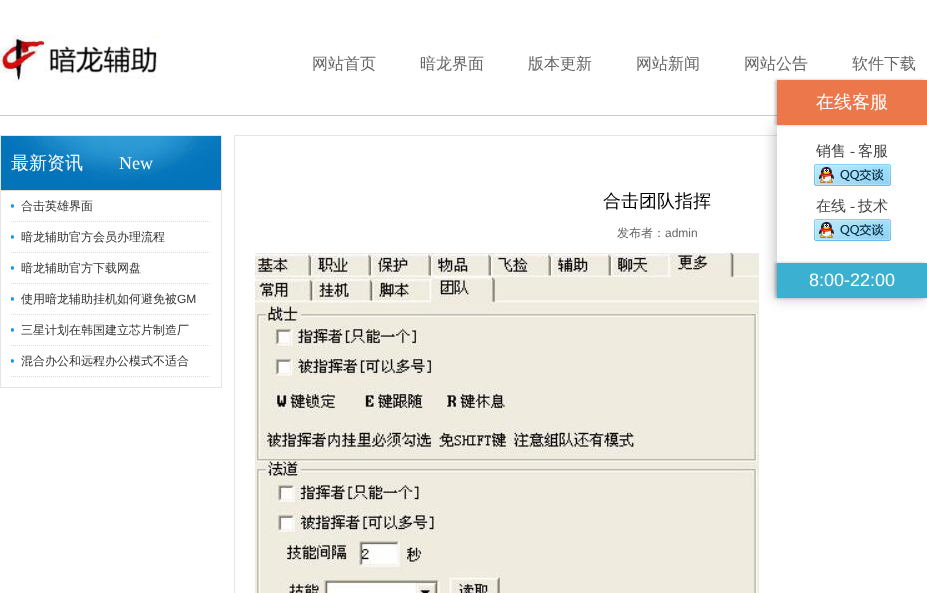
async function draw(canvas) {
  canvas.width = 927;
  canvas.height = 593;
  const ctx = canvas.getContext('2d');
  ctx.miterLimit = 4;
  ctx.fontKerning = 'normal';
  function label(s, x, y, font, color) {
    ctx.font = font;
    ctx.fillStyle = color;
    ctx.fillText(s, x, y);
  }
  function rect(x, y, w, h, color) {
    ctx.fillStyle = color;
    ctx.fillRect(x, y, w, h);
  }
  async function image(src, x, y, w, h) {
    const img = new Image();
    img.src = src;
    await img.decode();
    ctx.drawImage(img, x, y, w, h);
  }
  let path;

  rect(0, 0, 927, 593, '#fff');
  rect(0, 115, 777, 1, '#cbcaca');
  await image('assets/img1.png', 0, 35, 161, 47);
  label('网站首页', 312, 69, '500 16px WenQuanYi Zen Hei', '#666');
  label('暗龙界面', 420, 69, '500 16px WenQuanYi Zen Hei', '#666');
  label('版本更新', 528, 69, '500 16px WenQuanYi Zen Hei', '#666');
  label('网站新闻', 636, 69, '500 16px WenQuanYi Zen Hei', '#666');
  label('网站公告', 744, 69, '500 16px WenQuanYi Zen Hei', '#666');
  label('软件下载', 852, 69, '500 16px WenQuanYi Zen Hei', '#666');
  ctx.strokeStyle = '#e5e5e5';
  ctx.strokeRect(0.5, 135.5, 221, 252);
  await image('assets/img2.png', 1, 136, 220, 54);
  rect(1, 190, 220, 1, '#ddd');
  label('最新资讯', 11, 169, '500 18px WenQuanYi Zen Hei', '#fff');
  label('New', 119, 169, '18px Liberation Serif', '#fff');
  await image('assets/img3.png', 11, 203, 3, 5);
  path = new Path2D('M11 221.5H211');
  ctx.strokeStyle = '#ddd';
  ctx.setLineDash([1, 1]);
  ctx.stroke(path);
  label('合击英雄界面', 21, 210, '500 12px WenQuanYi Zen Hei', '#333');
  await image('assets/img3.png', 11, 234, 3, 5);
  path = new Path2D('M11 252.5H211');
  ctx.stroke(path);
  label('暗龙辅助官方会员办理流程', 21, 241, '500 12px WenQuanYi Zen Hei', '#333');
  await image('assets/img3.png', 11, 265, 3, 5);
  path = new Path2D('M11 283.5H211');
  ctx.stroke(path);
  label('暗龙辅助官方下载网盘', 21, 272, '500 12px WenQuanYi Zen Hei', '#333');
  await image('assets/img3.png', 11, 296, 3, 5);
  path = new Path2D('M11 314.5H211');
  ctx.stroke(path);
  label('使用暗龙辅助挂机如何避免被', 21, 303, '500 12px WenQuanYi Zen Hei', '#333');
  label('GM', 177, 303, '12px Liberation Sans', '#333');
  await image('assets/img3.png', 11, 327, 3, 5);
  path = new Path2D('M11 345.5H211');
  ctx.stroke(path);
  label('三星计划在韩国建立芯片制造厂', 21, 334, '500 12px WenQuanYi Zen Hei', '#333');
  await image('assets/img3.png', 11, 358, 3, 5);
  path = new Path2D('M11 376.5H211');
  ctx.stroke(path);
  label('混合办公和远程办公模式不适合', 21, 365, '500 12px WenQuanYi Zen Hei', '#333');
  ctx.strokeStyle = '#e5e5e5';
  ctx.setLineDash([]);
  ctx.strokeRect(234.5, 135.5, 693, 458);
  label('合击团队指挥', 603, 207, '500 18px WenQuanYi Zen Hei', '#000');
  label('发布者：', 617, 237, '500 12px WenQuanYi Zen Hei', '#666');
  label('admin', 665, 237, '12px Liberation Sans', '#666');
  await image('assets/img4.png', 255, 253, 504, 340);
  rect(777, 135, 150, 1, '#fff');
  ctx.fillStyle = '#00000040';
  ctx.filter = 'blur(1.5px)';
  ctx.beginPath();
  ctx.rect(775, 80, 150, 45);
  ctx.fill();
  ctx.filter = 'none';
  ctx.save();
  path = new Path2D('M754 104H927V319H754ZM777 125H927V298H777Z');
  ctx.clip(path, 'evenodd');
  ctx.filter = 'blur(6.5px)';
  ctx.beginPath();
  ctx.rect(775, 125, 150, 173);
  ctx.fill();
  ctx.filter = 'none';
  ctx.restore();
  rect(777, 80, 150, 45, '#ec774b');
  label('在线客服', 816, 108, '500 18px WenQuanYi Zen Hei', '#fff');
  label('销售', 816, 156, '500 15px WenQuanYi Zen Hei', '#424242');
  label('-', 850, 156, '15px Liberation Serif', '#424242');
  label('客服', 858, 156, '500 15px WenQuanYi Zen Hei', '#424242');
  await image('assets/img5.png', 814, 164, 77, 22);
  label('在线', 816, 211, '500 15px WenQuanYi Zen Hei', '#424242');
  label('-', 850, 211, '15px Liberation Serif', '#424242');
  label('技术', 858, 211, '500 15px WenQuanYi Zen Hei', '#424242');
  await image('assets/img5.png', 814, 219, 77, 22);
  ctx.fillStyle = '#00000040';
  ctx.filter = 'blur(1.5px)';
  ctx.beginPath();
  ctx.rect(775, 263, 150, 35);
  ctx.fill();
  ctx.filter = 'none';
  rect(777, 263, 150, 35, '#3bb0d1');
  label('8:00-22:00', 809, 286, '18px Liberation Sans', '#fff');
}

draw(document.querySelector('canvas'));
